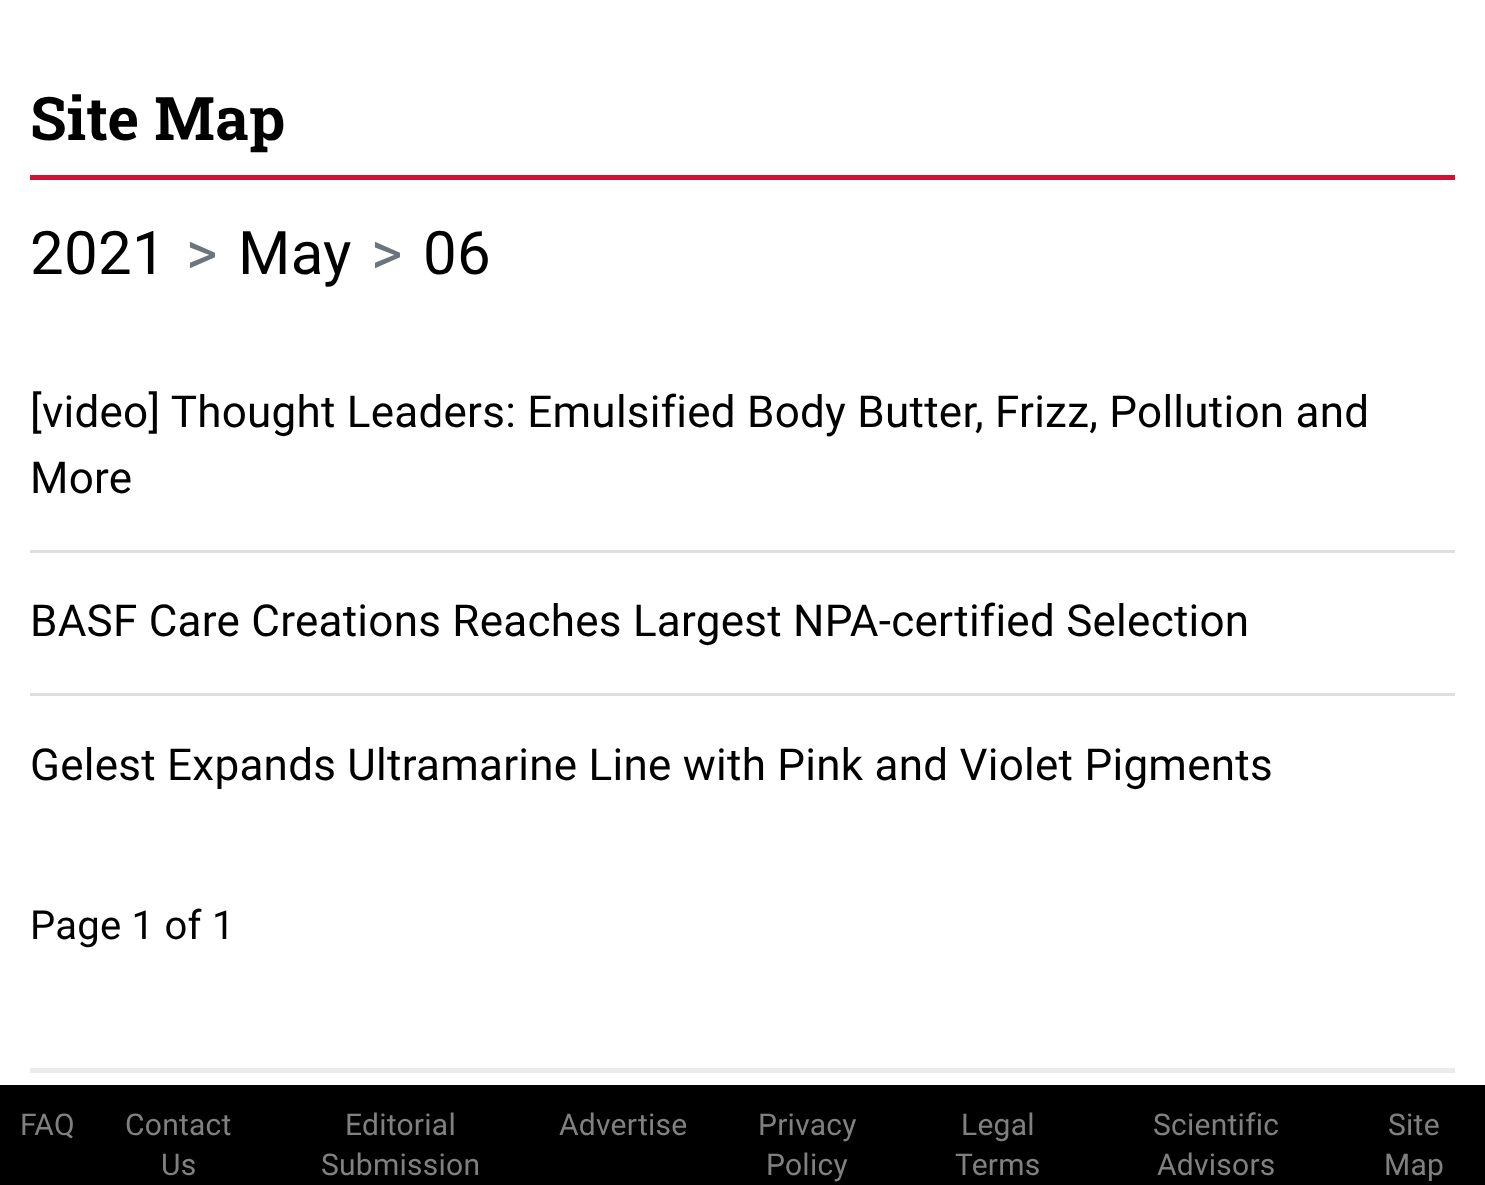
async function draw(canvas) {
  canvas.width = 1485;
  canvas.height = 1185;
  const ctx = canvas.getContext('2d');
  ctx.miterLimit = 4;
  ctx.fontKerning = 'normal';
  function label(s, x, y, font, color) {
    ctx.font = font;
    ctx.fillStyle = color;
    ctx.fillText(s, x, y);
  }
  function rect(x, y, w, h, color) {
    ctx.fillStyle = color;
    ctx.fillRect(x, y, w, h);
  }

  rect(0, 0, 1485, 1185, '#fff');
  rect(30, 1068, 1425, 5, '#ebebeb');
  rect(30, 175, 1425, 5, '#cf1337');
  ctx.letterSpacing = '0.25px';
  label('Site Map', 30, 140, 'bold 60px Roboto Slab', '#000');
  label('2021', 30, 274, '60px Roboto', '#000');
  label('>', 186, 274, '60px Roboto', '#6c757d');
  label('May', 238, 274, '60px Roboto', '#000');
  label('>', 371, 274, '60px Roboto', '#6c757d');
  label('06', 423, 274, '60px Roboto', '#000');
  rect(30, 550, 1425, 3, '#dfdfdf');
  label('[video] Thought Leaders: Emulsified Body Butter, Frizz, Pollution and', 30, 427, '44px Roboto', '#000');
  label('More', 30, 493, '44px Roboto', '#000');
  rect(30, 693, 1425, 3, '#dfdfdf');
  label('BASF Care Creations Reaches Largest NPA-certified Selection', 30, 636, '44px Roboto', '#000');
  label('Gelest Expands Ultramarine Line with Pink and Violet Pigments', 30, 780, '44px Roboto', '#000');
  label('Page 1 of 1', 30, 939, '40px Roboto', '#000');
  rect(0, 1085, 1485, 100, '#000');
  label('FAQ', 20, 1135, '30px Roboto', '#808080');
  label('Contact', 125, 1135, '30px Roboto', '#808080');
  label('Us', 161, 1175, '30px Roboto', '#808080');
  label('Editorial', 345, 1135, '30px Roboto', '#808080');
  label('Submission', 321, 1175, '30px Roboto', '#808080');
  label('Advertise', 559, 1135, '30px Roboto', '#808080');
  label('Privacy', 758, 1135, '30px Roboto', '#808080');
  label('Policy', 766, 1175, '30px Roboto', '#808080');
  label('Legal', 961, 1135, '30px Roboto', '#808080');
  label('Terms', 955, 1175, '30px Roboto', '#808080');
  label('Scientific', 1153, 1135, '30px Roboto', '#808080');
  label('Advisors', 1157, 1175, '30px Roboto', '#808080');
  label('Site', 1388, 1135, '30px Roboto', '#808080');
  label('Map', 1384, 1175, '30px Roboto', '#808080');
}

draw(document.querySelector('canvas'));
